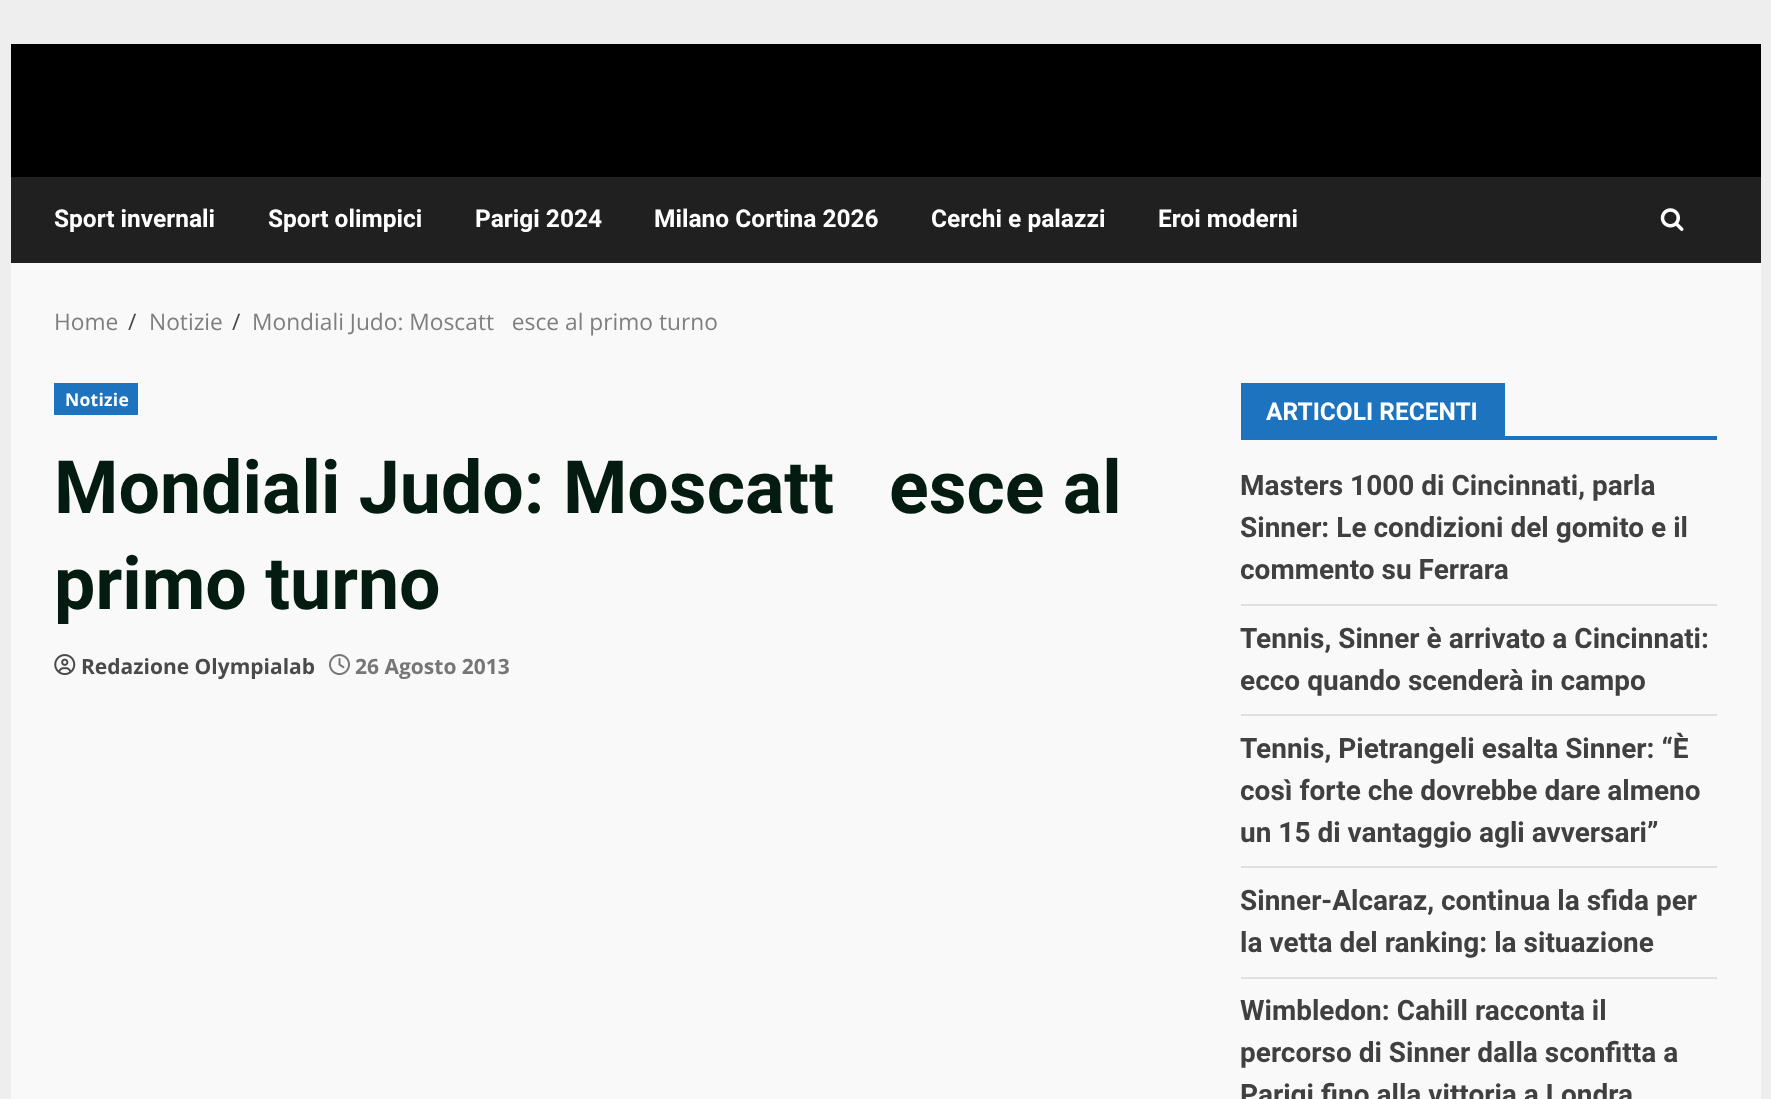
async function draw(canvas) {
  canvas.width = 1771;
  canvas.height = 1099;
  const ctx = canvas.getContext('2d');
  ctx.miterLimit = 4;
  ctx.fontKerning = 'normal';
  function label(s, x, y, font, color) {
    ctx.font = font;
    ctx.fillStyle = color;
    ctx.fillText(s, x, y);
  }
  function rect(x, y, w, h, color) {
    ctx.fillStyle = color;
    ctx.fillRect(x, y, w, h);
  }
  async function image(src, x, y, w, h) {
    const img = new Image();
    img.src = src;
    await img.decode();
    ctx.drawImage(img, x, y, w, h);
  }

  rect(0, 0, 1771, 1099, '#eee');
  rect(11, 263, 1750, 836, '#f9f9f9');
  rect(11, 44, 1750, 133, '#000');
  rect(11, 177, 1750, 86, '#202020');
  label('Sport invernali', 54, 227, 'bold 24.5px Roboto', '#fff');
  label('Sport olimpici', 268, 227, 'bold 24.5px Roboto', '#fff');
  label('Parigi 2024', 475, 227, 'bold 24.5px Roboto', '#fff');
  label('Milano Cortina 2026', 654, 227, 'bold 24.5px Roboto', '#fff');
  label('Cerchi e palazzi', 931, 227, 'bold 24.5px Roboto', '#fff');
  label('Eroi moderni', 1158, 227, 'bold 24.5px Roboto', '#fff');
  await image('assets/img1.png', 1660, 208, 24, 23);
  label('Home', 54, 330, '22.75px Open Sans', '#7f7f7f');
  label('/', 128, 330, '22.75px Open Sans', '#4a4a4a');
  label('Notizie', 149, 330, '22.75px Open Sans', '#7f7f7f');
  label('/', 232, 330, '22.75px Open Sans', '#4a4a4a');
  label('Mondiali Judo: Moscatt   esce al primo turno', 252, 330, '22.75px Open Sans', '#7f7f7f');
  rect(54, 383, 84, 32, '#1e73be');
  ctx.letterSpacing = '0.25px';
  label('Notizie', 65, 406, 'bold 17.5px Open Sans', '#fff');
  ctx.letterSpacing = '0px';
  label('Mondiali Judo: Moscatt   esce al', 54, 513, 'bold 73.5px Roboto', '#031b11');
  label('primo turno', 54, 609, 'bold 73.5px Roboto', '#031b11');
  await image('assets/img2.png', 54, 654, 22, 22);
  label('Redazione Olympialab', 81, 674, 'bold 21px Open Sans', '#4a4a4a');
  await image('assets/img3.png', 329, 654, 21, 22);
  label('26 Agosto 2013', 355, 674, 'bold 21px Open Sans', '#767676');
  rect(1241, 436, 476, 4, '#1e73be');
  rect(1241, 383, 264, 53, '#1e73be');
  label('ARTICOLI RECENTI', 1266, 420, 'bold 24.5px Roboto', '#fff');
  rect(1241, 604, 476, 2, '#e0e0e0');
  label('Masters 1000 di Cincinnati, parla', 1240, 495, 'bold 28px Roboto', '#404040');
  label('Sinner: Le condizioni del gomito e il', 1240, 537, 'bold 28px Roboto', '#404040');
  label('commento su Ferrara', 1240, 579, 'bold 28px Roboto', '#404040');
  rect(1241, 714, 476, 2, '#e0e0e0');
  label('Tennis, Sinner è arrivato a Cincinnati:', 1240, 648, 'bold 28px Roboto', '#404040');
  label('ecco quando scenderà in campo', 1240, 690, 'bold 28px Roboto', '#404040');
  rect(1241, 866, 476, 2, '#e0e0e0');
  label('Tennis, Pietrangeli esalta Sinner: “È', 1240, 758, 'bold 28px Roboto', '#404040');
  label('così forte che dovrebbe dare almeno', 1240, 800, 'bold 28px Roboto', '#404040');
  label('un 15 di vantaggio agli avversari”', 1240, 842, 'bold 28px Roboto', '#404040');
  rect(1241, 977, 476, 2, '#e0e0e0');
  label('Sinner-Alcaraz, continua la sfida per', 1240, 910, 'bold 28px Roboto', '#404040');
  label('la vetta del ranking: la situazione', 1240, 952, 'bold 28px Roboto', '#404040');
  label('Wimbledon: Cahill racconta il', 1240, 1020, 'bold 28px Roboto', '#404040');
  label('percorso di Sinner dalla sconfitta a', 1240, 1062, 'bold 28px Roboto', '#404040');
  label('Parigi fino alla vittoria a Londra', 1240, 1104, 'bold 28px Roboto', '#404040');
}

draw(document.querySelector('canvas'));
